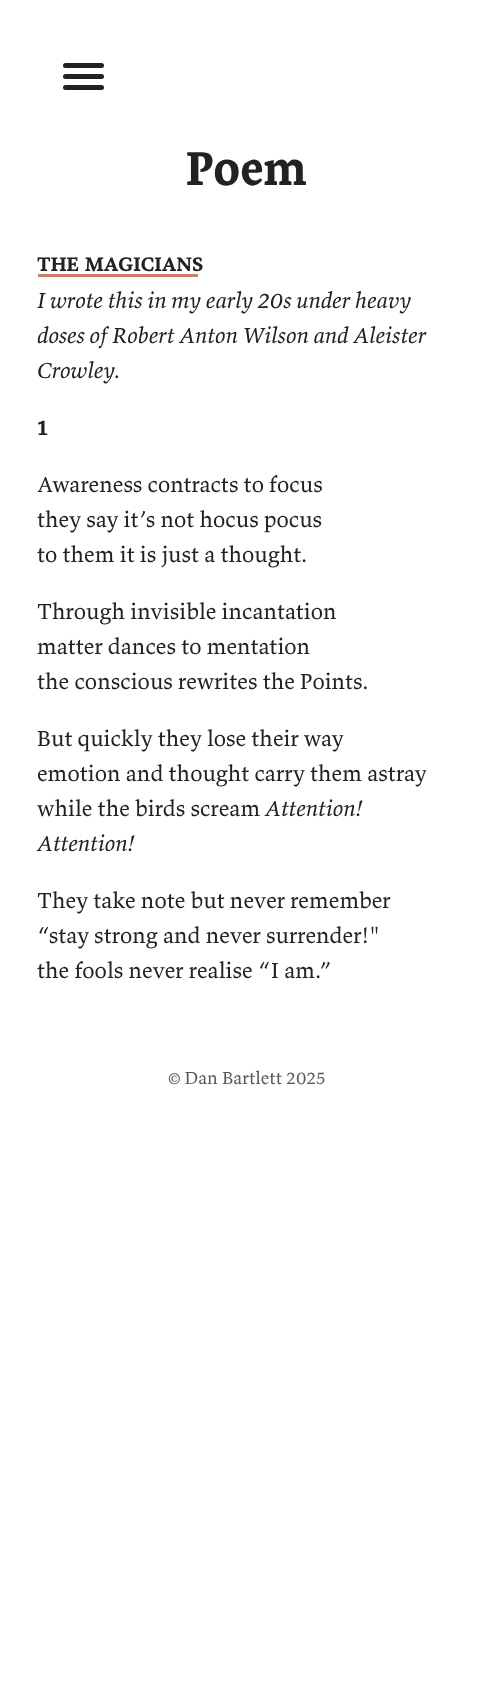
async function draw(canvas) {
  canvas.width = 493;
  canvas.height = 1683;
  const ctx = canvas.getContext('2d');
  ctx.miterLimit = 4;
  ctx.fontKerning = 'normal';
  function label(s, x, y, font, color) {
    ctx.font = font;
    ctx.fillStyle = color;
    ctx.fillText(s, x, y);
  }
  function rect(x, y, w, h, color) {
    ctx.fillStyle = color;
    ctx.fillRect(x, y, w, h);
  }
  function roundedRect(x, y, w, h, r, color) {
    ctx.fillStyle = color;
    ctx.beginPath();
    ctx.roundRect(x, y, w, h, r);
    ctx.fill();
  }

  rect(0, 0, 493, 1683, '#fff');
  roundedRect(63, 63, 41, 5, 2.5, '#222');
  roundedRect(63, 74, 41, 5, 2.5, '#222');
  roundedRect(63, 85, 41, 5, 2.5, '#222');
  label('Poem', 186, 185, 'bold 49.5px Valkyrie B', '#222');
  label('THE', 37, 271, 'bold 20.5px Valkyrie B', '#222');
  rect(38, 274, 160, 3, '#da7959');
  label('MAGICIANS', 85, 271, 'bold 20.5px Valkyrie B', '#222');
  label('I wrote this in my early 20s under heavy', 37, 308, 'italic 300 22.5px Valkyrie B', '#222');
  label('doses of Robert Anton Wilson and Aleister', 37, 343, 'italic 300 22.5px Valkyrie B', '#222');
  label('Crowley.', 37, 378, 'italic 300 22.5px Valkyrie B', '#222');
  label('1', 37, 435, 'bold 22.5px Valkyrie B', '#222');
  label('Awareness contracts to focus', 37, 492, '22.5px Valkyrie B', '#222');
  label('they say it’s not hocus pocus', 37, 527, '22.5px Valkyrie B', '#222');
  label('to them it is just a thought.', 37, 562, '22.5px Valkyrie B', '#222');
  label('Through invisible incantation', 37, 619, '22.5px Valkyrie B', '#222');
  label('matter dances to mentation', 37, 654, '22.5px Valkyrie B', '#222');
  label('the conscious rewrites the Points.', 37, 689, '22.5px Valkyrie B', '#222');
  label('But quickly they lose their way', 37, 746, '22.5px Valkyrie B', '#222');
  label('emotion and thought carry them astray', 37, 781, '22.5px Valkyrie B', '#222');
  label('while the birds scream', 37, 816, '22.5px Valkyrie B', '#222');
  label('Attention!', 265, 816, 'italic 300 22.5px Valkyrie B', '#222');
  label('Attention!', 37, 851, 'italic 300 22.5px Valkyrie B', '#222');
  label('They take note but never remember', 37, 908, '22.5px Valkyrie B', '#222');
  label('“stay strong and never surrender!"', 37, 943, '22.5px Valkyrie B', '#222');
  label('the fools never realise “I am.”', 37, 978, '22.5px Valkyrie B', '#222');
  label('© Dan Bartlett 2025', 168, 1084, '18px Valkyrie B', '#595959');
}

draw(document.querySelector('canvas'));
